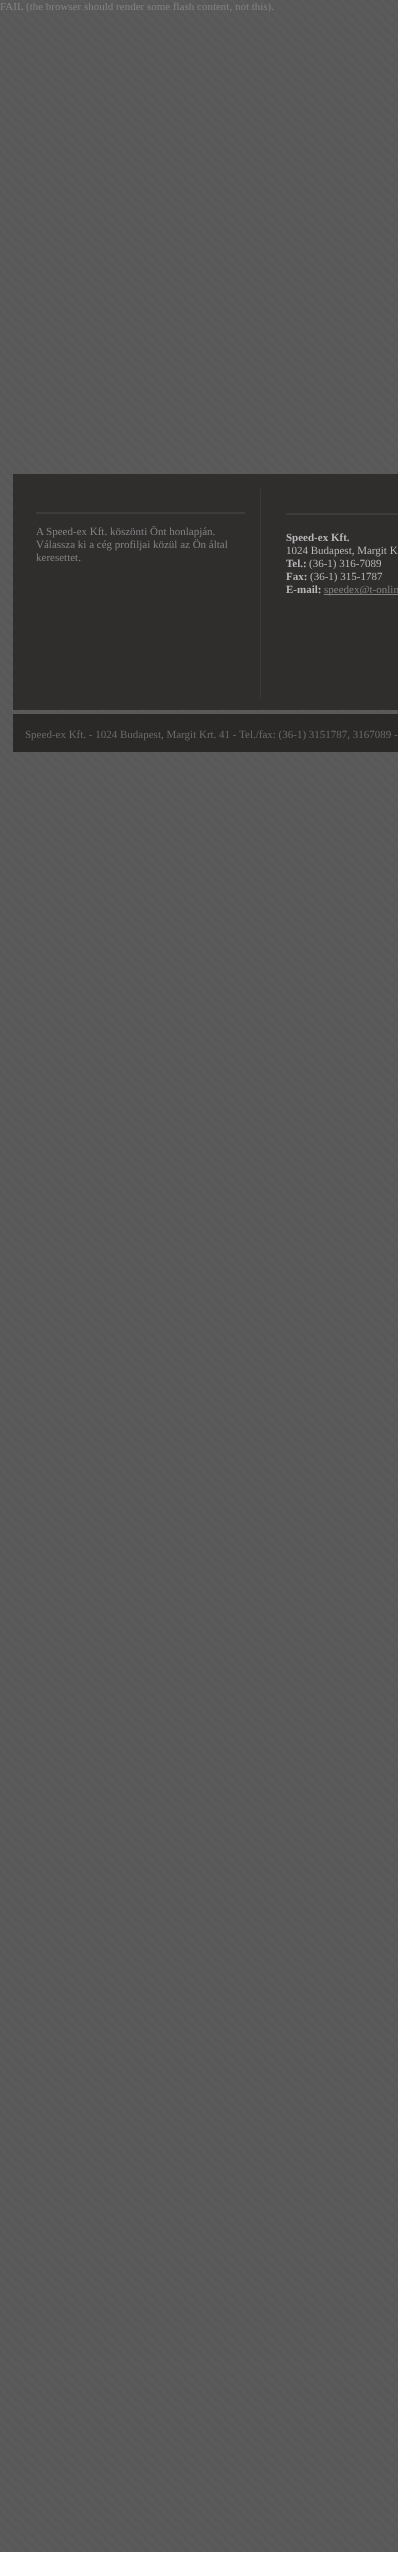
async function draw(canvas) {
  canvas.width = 398;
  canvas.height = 2552;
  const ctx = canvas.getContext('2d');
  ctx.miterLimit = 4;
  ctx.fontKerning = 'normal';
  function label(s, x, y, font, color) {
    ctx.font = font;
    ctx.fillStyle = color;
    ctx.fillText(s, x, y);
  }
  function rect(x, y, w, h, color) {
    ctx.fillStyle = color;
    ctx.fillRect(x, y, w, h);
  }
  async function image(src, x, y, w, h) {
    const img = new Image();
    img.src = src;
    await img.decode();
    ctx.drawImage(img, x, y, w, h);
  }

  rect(0, 0, 398, 2552, '#fff');
  await image('assets/img1.png', 0, 0, 398, 2552);
  await image('assets/img2.png', 0, 2, 274, 10);
  rect(13, 474, 385, 236, '#302d2d');
  rect(260, 489, 1, 209, '#3a3838');
  rect(36, 512, 209, 2, '#3e3b3b');
  label('A Speed-ex Kft. köszönti Önt honlapján.', 36, 535, '11px Liberation Serif', '#828282');
  label('Válassza ki a cég profiljai közül az Ön által', 36, 548, '11px Liberation Serif', '#828282');
  label('keresettet.', 36, 561, '11px Liberation Serif', '#828282');
  rect(286, 513, 112, 2, '#3e3b3b');
  label('Speed-ex Kft.', 286, 541, 'bold 11px Liberation Serif', '#b7b7b7');
  label('1024 Budapest, Margit K', 286, 554, '11px Liberation Serif', '#b7b7b7');
  label('Tel.:', 286, 567, 'bold 11px Liberation Serif', '#b7b7b7');
  label('(36-1) 316-7089', 309, 567, '11px Liberation Serif', '#b7b7b7');
  label('Fax:', 286, 580, 'bold 11px Liberation Serif', '#b7b7b7');
  label('(36-1) 315-1787', 310, 580, '11px Liberation Serif', '#b7b7b7');
  label('E-mail:', 286, 593, 'bold 11px Liberation Serif', '#b7b7b7');
  rect(324, 594, 74, 1, '#828282');
  label('speedex@t-onlin', 324, 593, '11px Liberation Serif', '#828282');
  rect(13, 714, 385, 38, '#2b2828');
  label('Speed-ex Kft. - 1024 Budapest, Margit Krt. 41 - Tel./fax: (36-1) 3151787, 3167089 -', 25, 738, '11px Liberation Serif', '#6b6969');
}

draw(document.querySelector('canvas'));
